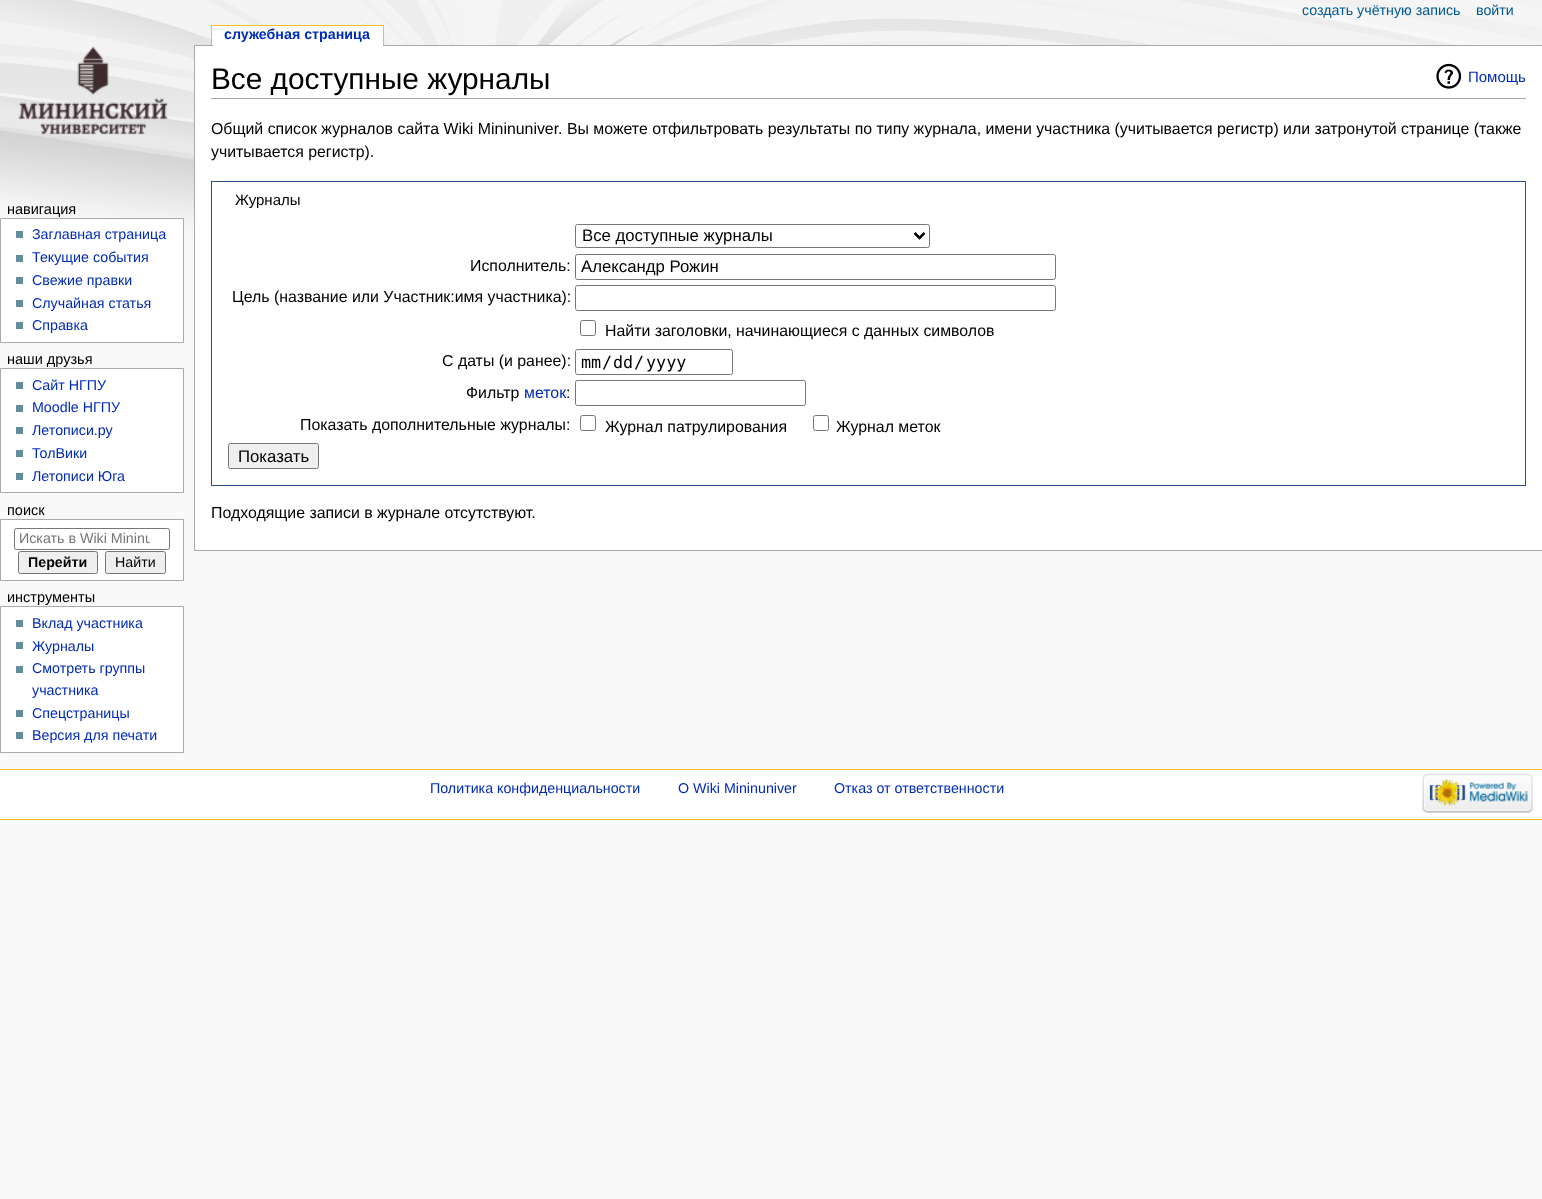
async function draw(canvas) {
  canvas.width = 1542;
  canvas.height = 1199;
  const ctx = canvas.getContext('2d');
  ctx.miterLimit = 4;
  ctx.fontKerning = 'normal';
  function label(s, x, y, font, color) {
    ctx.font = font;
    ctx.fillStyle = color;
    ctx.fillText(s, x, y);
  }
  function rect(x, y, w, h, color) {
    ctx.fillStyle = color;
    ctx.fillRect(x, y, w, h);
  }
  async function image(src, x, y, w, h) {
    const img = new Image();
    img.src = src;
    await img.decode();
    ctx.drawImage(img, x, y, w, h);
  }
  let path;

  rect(0, 0, 1542, 1199, '#f9f9f9');
  await image('assets/img1.png', 0, 0, 1542, 263);
  label('создать учётную запись', 1302, 15, '14.25px Liberation Sans', '#005896');
  label('войти', 1476, 15, '14.25px Liberation Sans', '#005896');
  rect(194, 45, 1348, 1, '#aaa');
  rect(213, 26, 170, 20, '#fff');
  label('служебная страница', 224, 39, 'bold 14.25px Liberation Sans', '#002bb8');
  rect(212, 26, 1, 19, '#fff');
  rect(211, 25, 173, 1, '#fabd23');
  rect(383, 25, 1, 20, '#fabd23');
  rect(211, 25, 1, 20, '#fabd23');
  await image('assets/img2.png', 18, 46, 150, 89);
  label('навигация', 7, 214, '14.5px Liberation Sans', '#000');
  ctx.fillStyle = '#fff';
  ctx.beginPath();
  ctx.rect(0.5, 218.5, 183, 124);
  ctx.fill();
  ctx.strokeStyle = '#aaa';
  ctx.stroke();
  rect(16, 231, 7, 7, '#638c9c');
  label('Заглавная страница', 32, 239, '14.25px Liberation Sans', '#002bb8');
  rect(16, 255, 7, 7, '#638c9c');
  label('Текущие события', 32, 262, '14.25px Liberation Sans', '#002bb8');
  rect(16, 277, 7, 7, '#638c9c');
  label('Свежие правки', 32, 285, '14.25px Liberation Sans', '#002bb8');
  rect(16, 300, 7, 7, '#638c9c');
  label('Случайная статья', 32, 308, '14.25px Liberation Sans', '#002bb8');
  rect(16, 322, 7, 7, '#638c9c');
  label('Справка', 32, 330, '14.25px Liberation Sans', '#002bb8');
  label('наши друзья', 7, 364, '14.5px Liberation Sans', '#000');
  ctx.fillStyle = '#fff';
  ctx.beginPath();
  ctx.rect(0.5, 368.5, 183, 124);
  ctx.fill();
  ctx.stroke();
  rect(16, 382, 7, 7, '#638c9c');
  label('Cайт НГПУ', 32, 390, '14.25px Liberation Sans', '#002bb8');
  rect(16, 405, 7, 7, '#638c9c');
  label('Moodle НГПУ', 32, 412, '14.25px Liberation Sans', '#002bb8');
  rect(16, 427, 7, 7, '#638c9c');
  label('Летописи.ру', 32, 435, '14.25px Liberation Sans', '#002bb8');
  rect(16, 450, 7, 7, '#638c9c');
  label('ТолВики', 32, 458, '14.25px Liberation Sans', '#002bb8');
  rect(16, 473, 7, 7, '#638c9c');
  label('Летописи Юга', 32, 481, '14.25px Liberation Sans', '#002bb8');
  label('поиск', 7, 515, '14.5px Liberation Sans', '#000');
  ctx.fillStyle = '#fff';
  ctx.beginPath();
  ctx.rect(0.5, 519.5, 183, 61);
  ctx.fill();
  ctx.stroke();
  ctx.beginPath();
  ctx.roundRect(14.5, 528.5, 155, 21, 2);
  ctx.strokeStyle = '#767676';
  ctx.stroke();
  ctx.save();
  ctx.beginPath();
  ctx.rect(19, 531, 131, 15);
  ctx.clip();
  label('Искать в Wiki Mininu', 19, 543, '14.25px Liberation Sans', '#757575');
  ctx.restore();
  ctx.fillStyle = '#efefef';
  ctx.beginPath();
  ctx.roundRect(18.5, 551.5, 79, 22, 2);
  ctx.fill();
  ctx.stroke();
  label('Перейти', 28, 567, 'bold 14.25px Liberation Sans', '#000');
  ctx.fillStyle = '#efefef';
  ctx.beginPath();
  ctx.roundRect(105.5, 551.5, 60, 22, 2);
  ctx.fill();
  ctx.stroke();
  label('Найти', 115, 567, '14.25px Liberation Sans', '#000');
  label('инструменты', 7, 602, '14.5px Liberation Sans', '#000');
  ctx.fillStyle = '#fff';
  ctx.beginPath();
  ctx.rect(0.5, 606.5, 183, 146);
  ctx.fill();
  ctx.strokeStyle = '#aaa';
  ctx.stroke();
  rect(16, 620, 7, 7, '#638c9c');
  label('Вклад участника', 32, 628, '14.25px Liberation Sans', '#002bb8');
  rect(16, 642, 7, 7, '#638c9c');
  label('Журналы', 32, 651, '14.25px Liberation Sans', '#002bb8');
  rect(16, 666, 7, 7, '#638c9c');
  label('Смотреть группы', 32, 673, '14.25px Liberation Sans', '#002bb8');
  label('участника', 32, 695, '14.25px Liberation Sans', '#002bb8');
  rect(16, 710, 7, 7, '#638c9c');
  label('Спецстраницы', 32, 718, '14.25px Liberation Sans', '#002bb8');
  rect(16, 732, 7, 7, '#638c9c');
  label('Версия для печати', 32, 740, '14.25px Liberation Sans', '#002bb8');
  rect(195, 46, 1347, 504, '#fff');
  rect(194, 550, 1348, 1, '#aaa');
  rect(194, 45, 1, 506, '#aaa');
  rect(211, 98, 1315, 1, '#a2a9b1');
  label('Все доступные журналы', 211, 89, '29.8px Liberation Sans', '#000');
  await image('assets/img3.png', 1436, 63, 26, 26);
  label('Помощь', 1468, 82, '15px Liberation Sans', '#002bb8');
  label('Общий список журналов сайта Wiki Mininuniver. Вы можете отфильтровать результаты по типу журнала, имени участника (учитывается регистр) или затронутой странице (также', 211, 134, '15.88px Liberation Sans', '#000');
  label('учитывается регистр).', 211, 157, '15.88px Liberation Sans', '#000');
  ctx.strokeStyle = '#2a4b8d';
  ctx.strokeRect(211.5, 181.5, 1314, 304);
  label('Журналы', 235, 205, '15px Liberation Sans', '#000');
  ctx.beginPath();
  ctx.roundRect(575.5, 224.5, 354, 23, 2);
  ctx.strokeStyle = '#767676';
  ctx.stroke();
  path = new Path2D('M914.5 233L919.5 238L924.5 233');
  ctx.strokeStyle = '#000';
  ctx.lineWidth = 2.5;
  ctx.stroke(path);
  label('Все доступные журналы', 582, 241, '16.75px Liberation Sans', '#000');
  label('Исполнитель:', 470, 271, '15.88px Liberation Sans', '#000');
  ctx.beginPath();
  ctx.roundRect(575.5, 254.5, 480, 25, 2);
  ctx.strokeStyle = '#767676';
  ctx.lineWidth = 1;
  ctx.stroke();
  label('Александр Рожин', 581, 272, '16.75px Liberation Sans', '#000');
  label('Цель (название или Участник:имя участника):', 232, 302, '15.88px Liberation Sans', '#000');
  ctx.beginPath();
  ctx.roundRect(575.5, 285.5, 480, 25, 2);
  ctx.stroke();
  ctx.beginPath();
  ctx.roundRect(580.5, 320.5, 15, 15, 2);
  ctx.stroke();
  label('Найти заголовки, начинающиеся с данных символов', 605, 336, '15.88px Liberation Sans', '#000');
  label('С даты (и ранее):', 442, 366, '15.88px Liberation Sans', '#000');
  ctx.beginPath();
  ctx.roundRect(575.5, 349.5, 157, 25, 2);
  ctx.stroke();
  label('mm', 581, 368, '16.75px DejaVu Sans Mono', '#000');
  label('/', 602, 368, '16.75px DejaVu Sans Mono', '#000');
  label('dd', 613, 368, '16.75px DejaVu Sans Mono', '#000');
  label('/', 634, 368, '16.75px DejaVu Sans Mono', '#000');
  label('yyyy', 646, 368, '16.75px DejaVu Sans Mono', '#000');
  label('Фильтр', 466, 398, '15.88px Liberation Sans', '#000');
  label('меток', 524, 398, '15.88px Liberation Sans', '#002bb8');
  label(':', 566, 398, '15.88px Liberation Sans', '#000');
  ctx.beginPath();
  ctx.roundRect(575.5, 380.5, 230, 25, 2);
  ctx.stroke();
  label('Показать дополнительные журналы:', 300, 430, '15.88px Liberation Sans', '#000');
  ctx.beginPath();
  ctx.roundRect(580.5, 415.5, 15, 15, 2);
  ctx.stroke();
  label('Журнал патрулирования', 605, 432, '15.88px Liberation Sans', '#000');
  ctx.beginPath();
  ctx.roundRect(813.5, 415.5, 15, 15, 2);
  ctx.stroke();
  label('Журнал меток', 836, 432, '15.88px Liberation Sans', '#000');
  ctx.fillStyle = '#efefef';
  ctx.beginPath();
  ctx.roundRect(228.5, 443.5, 90, 25, 2);
  ctx.fill();
  ctx.stroke();
  label('Показать', 238, 462, '16.75px Liberation Sans', '#000');
  label('Подходящие записи в журнале отсутствуют.', 211, 518, '15.88px Liberation Sans', '#000');
  rect(0, 770, 1542, 49, '#fff');
  rect(0, 769, 1542, 1, '#fabd23');
  rect(0, 819, 1542, 1, '#fabd23');
  label('Политика конфиденциальности', 430, 793, '14.25px Liberation Sans', '#002bb8');
  label('О Wiki Mininuniver', 678, 793, '14.25px Liberation Sans', '#002bb8');
  label('Отказ от ответственности', 834, 793, '14.25px Liberation Sans', '#002bb8');
  await image('assets/img4.png', 1422, 773, 111, 40);
}

draw(document.querySelector('canvas'));
